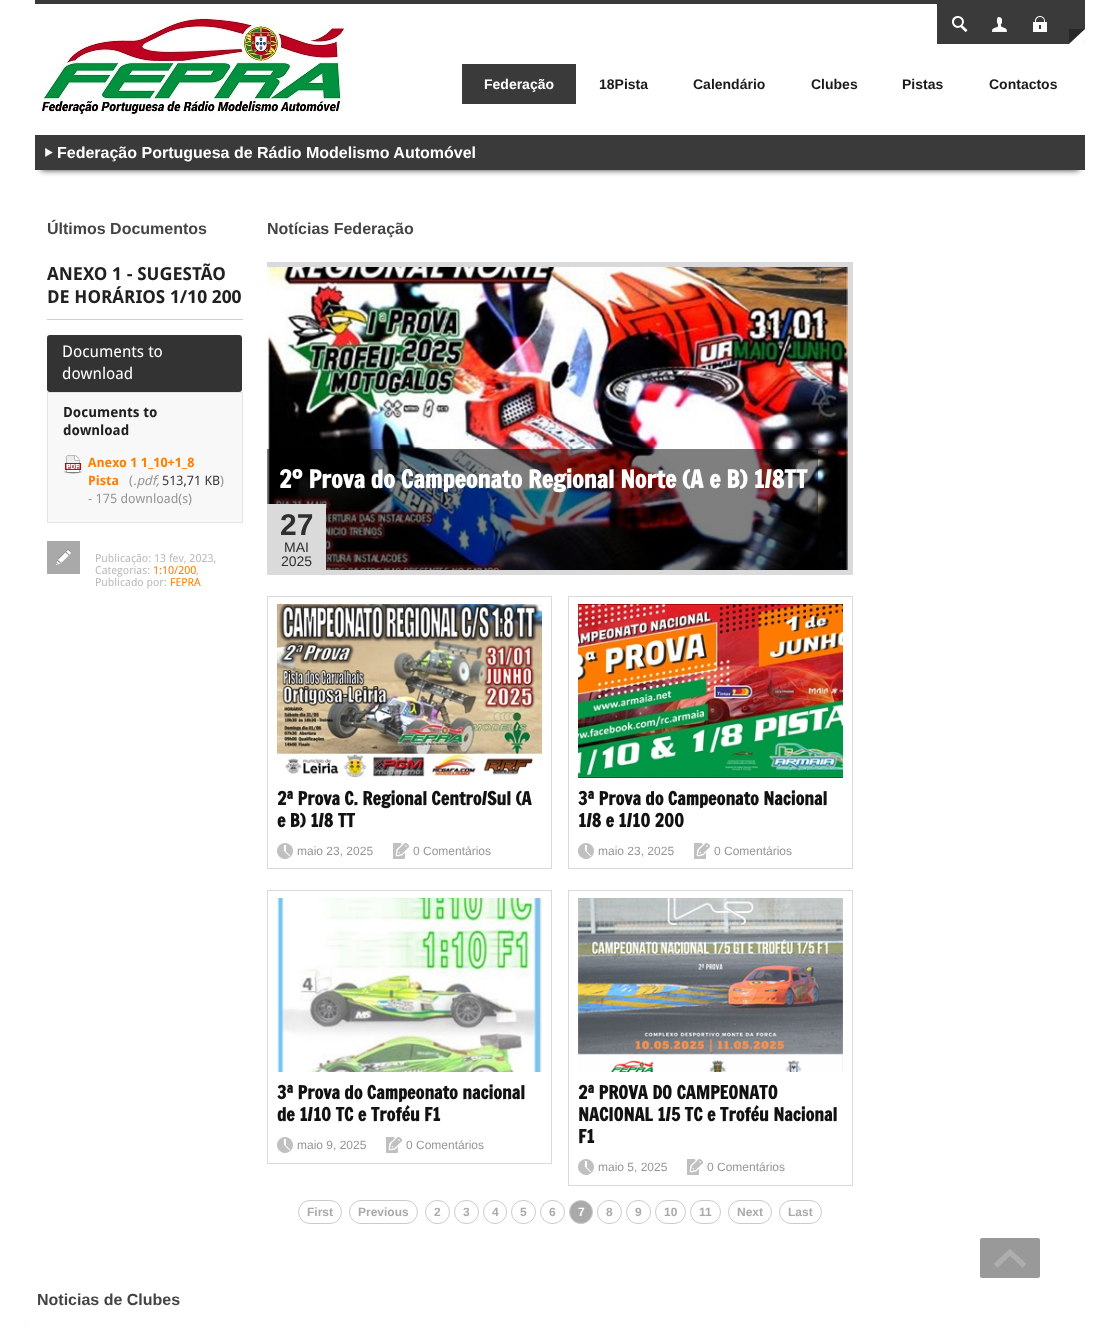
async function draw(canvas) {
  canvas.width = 1120;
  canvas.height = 1331;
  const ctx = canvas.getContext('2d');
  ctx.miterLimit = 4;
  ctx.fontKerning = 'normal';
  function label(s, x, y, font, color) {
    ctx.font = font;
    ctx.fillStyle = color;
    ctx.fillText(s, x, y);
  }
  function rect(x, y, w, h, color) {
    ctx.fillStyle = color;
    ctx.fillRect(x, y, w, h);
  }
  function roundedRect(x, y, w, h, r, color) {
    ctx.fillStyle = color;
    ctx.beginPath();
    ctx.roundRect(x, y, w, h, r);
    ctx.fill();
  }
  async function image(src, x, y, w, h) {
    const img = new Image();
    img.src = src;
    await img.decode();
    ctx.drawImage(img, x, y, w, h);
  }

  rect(0, 0, 1120, 1331, '#fff');
  await image('assets/img1.png', 0, 0, 1120, 1331);
  rect(35, 0, 1050, 4, '#3a3a3a');
  rect(937, 4, 148, 40, '#3a3a3a');
  await image('assets/img2.png', 1069, 29, 16, 15);
  await image('assets/img3.png', 952, 16, 16, 16);
  await image('assets/img4.png', 992, 17, 15, 15);
  await image('assets/img5.png', 1032, 16, 15, 16);
  await image('assets/img6.png', 40, 15, 305, 100);
  rect(462, 64, 114, 40, '#3a3a3a');
  label('Federação', 484, 89, 'bold 14px Liberation Sans', '#fff');
  label('18Pista', 599, 89, 'bold 14px Liberation Sans', '#1a1a1a');
  label('Calendário', 693, 89, 'bold 14px Liberation Sans', '#1a1a1a');
  label('Clubes', 811, 89, 'bold 14px Liberation Sans', '#1a1a1a');
  label('Pistas', 902, 89, 'bold 14px Liberation Sans', '#1a1a1a');
  label('Contactos', 989, 89, 'bold 14px Liberation Sans', '#1a1a1a');
  ctx.fillStyle = '#000000cc';
  ctx.filter = 'blur(3px)';
  ctx.beginPath();
  ctx.rect(41, 147, 1038, 23);
  ctx.fill();
  ctx.filter = 'none';
  rect(35, 135, 1050, 35, '#3a3a3a');
  await image('assets/img7.png', 45, 148, 8, 9);
  label('Federação Portuguesa de Rádio Modelismo Automóvel', 57, 158, 'bold 16px Liberation Sans', '#fff');
  label('Últimos Documentos', 47, 234, 'bold 16px Liberation Sans', '#444');
  rect(47, 319, 196, 1, '#cecece');
  label('ANEXO 1 - SUGESTÃO', 47, 280, 'bold 18px Droid Sans', '#212121');
  label('DE HORÁRIOS 1/10 200', 47, 303, 'bold 18px Droid Sans', '#212121');
  roundedRect(47, 335, 195, 57, 3, '#333');
  label('Documents to', 62, 357, '16px Droid Sans', '#fff');
  label('download', 62, 379, '16px Droid Sans', '#fff');
  ctx.fillStyle = '#f8f8f8';
  ctx.beginPath();
  ctx.rect(47.5, 392.5, 195, 130);
  ctx.fill();
  ctx.strokeStyle = '#e3e3e3';
  ctx.stroke();
  label('Documents to', 63, 417, 'bold 14px Droid Sans', '#212121');
  label('download', 63, 435, 'bold 14px Droid Sans', '#212121');
  await image('assets/img8.png', 64, 455, 18, 19);
  label('Anexo 1 1_10+1_8', 88, 467, 'bold 13px Droid Sans', '#ff7e00');
  label('Pista', 88, 485, 'bold 13px Droid Sans', '#ff7e00');
  label('(', 129, 485, '13px Droid Sans', '#969696');
  label('.pdf,', 133, 485, 'italic 13px Droid Sans', '#969696');
  label('513,71 KB', 162, 485, '13px Droid Sans', '#3b3b3b');
  label(')', 220, 485, '13px Droid Sans', '#969696');
  label('- 175 download(s)', 88, 503, '13px Droid Sans', '#969696');
  rect(47, 541, 33, 33, '#a9a9a9');
  await image('assets/img9.png', 56, 549, 15, 16);
  label('Publicação: 13 fev, 2023,', 95, 562, '11px Droid Sans', '#bbb');
  label('Categorias:', 95, 574, '11px Droid Sans', '#bbb');
  label('1:10/200', 153, 574, '11px Droid Sans', '#ff7e00');
  label(',', 196, 574, '11px Droid Sans', '#bbb');
  label('Publicado por:', 95, 586, '11px Droid Sans', '#bbb');
  label('FEPRA', 170, 586, '11px Droid Sans', '#ff7e00');
  label('Notícias Federação', 267, 234, 'bold 16px Liberation Sans', '#444');
  rect(267, 262, 586, 5, '#dadada');
  rect(848, 262, 5, 313, '#dadada');
  rect(267, 570, 586, 5, '#dadada');
  await image('assets/img10.png', 267, 267, 581, 303);
  rect(267, 449, 551, 121, '#00000080');
  label('2º Prova do Campeonato Regional Norte (A e B) 1/8TT', 279, 488, 'bold 24px Francois One', '#fff');
  rect(267, 504, 59, 66, '#dadada');
  label('27', 280, 535, 'bold 30px Liberation Sans', '#2f2f2f');
  label('MAI', 284, 552, '14px Liberation Sans', '#2f2f2f');
  label('2025', 281, 566, '14px Liberation Sans', '#2f2f2f');
  ctx.strokeStyle = '#dadada';
  ctx.strokeRect(267.5, 596.5, 284, 272);
  await image('assets/img11.png', 277, 604, 265, 174);
  label('2ª Prova C. Regional Centro/Sul (A', 277, 805, 'bold 18px Francois One', '#121212');
  label('e B) 1/8 TT', 277, 827, 'bold 18px Francois One', '#121212');
  await image('assets/img12.png', 277, 843, 16, 16);
  label('maio 23, 2025', 297, 855, '12px Liberation Sans', '#969696');
  await image('assets/img13.png', 393, 843, 16, 16);
  label('0 Comentários', 413, 855, '12px Liberation Sans', '#969696');
  ctx.strokeRect(568.5, 596.5, 284, 272);
  await image('assets/img14.png', 578, 604, 265, 174);
  label('3ª Prova do Campeonato Nacional', 578, 805, 'bold 18px Francois One', '#121212');
  label('1/8 e 1/10 200', 578, 827, 'bold 18px Francois One', '#121212');
  await image('assets/img12.png', 578, 843, 16, 16);
  label('maio 23, 2025', 598, 855, '12px Liberation Sans', '#969696');
  await image('assets/img13.png', 694, 843, 16, 16);
  label('0 Comentários', 714, 855, '12px Liberation Sans', '#969696');
  ctx.strokeRect(267.5, 890.5, 284, 273);
  await image('assets/img15.png', 277, 898, 265, 174);
  label('3ª Prova do Campeonato nacional', 277, 1099, 'bold 18px Francois One', '#121212');
  label('de 1/10 TC e Troféu F1', 277, 1121, 'bold 18px Francois One', '#121212');
  await image('assets/img12.png', 277, 1137, 16, 16);
  label('maio 9, 2025', 297, 1149, '12px Liberation Sans', '#969696');
  await image('assets/img13.png', 386, 1137, 16, 16);
  label('0 Comentários', 406, 1149, '12px Liberation Sans', '#969696');
  ctx.strokeRect(568.5, 890.5, 284, 295);
  await image('assets/img16.png', 578, 898, 265, 174);
  label('2ª PROVA DO CAMPEONATO', 578, 1099, 'bold 18px Francois One', '#121212');
  label('NACIONAL 1/5 TC e Troféu Nacional', 578, 1121, 'bold 18px Francois One', '#121212');
  label('F1', 578, 1143, 'bold 18px Francois One', '#121212');
  await image('assets/img12.png', 578, 1159, 16, 16);
  label('maio 5, 2025', 598, 1171, '12px Liberation Sans', '#969696');
  await image('assets/img13.png', 687, 1159, 16, 16);
  label('0 Comentários', 707, 1171, '12px Liberation Sans', '#969696');
  ctx.beginPath();
  ctx.roundRect(298.5, 1200.5, 43, 23, 11.5);
  ctx.strokeStyle = '#cbcbcb';
  ctx.stroke();
  label('First', 307, 1216, 'bold 12px Liberation Sans', '#aaa');
  ctx.beginPath();
  ctx.roundRect(349.5, 1200.5, 68, 23, 11.5);
  ctx.stroke();
  label('Previous', 358, 1216, 'bold 12px Liberation Sans', '#aaa');
  ctx.beginPath();
  ctx.roundRect(425.5, 1200.5, 24, 23, 11.5);
  ctx.stroke();
  label('2', 434, 1216, 'bold 12px Liberation Sans', '#aaa');
  ctx.beginPath();
  ctx.roundRect(454.5, 1200.5, 24, 23, 11.5);
  ctx.stroke();
  label('3', 463, 1216, 'bold 12px Liberation Sans', '#aaa');
  ctx.beginPath();
  ctx.arc(495, 1212, 11.5, 0, 2 * Math.PI);
  ctx.stroke();
  label('4', 492, 1216, 'bold 12px Liberation Sans', '#aaa');
  ctx.beginPath();
  ctx.roundRect(511.5, 1200.5, 24, 23, 11.5);
  ctx.stroke();
  label('5', 520, 1216, 'bold 12px Liberation Sans', '#aaa');
  ctx.beginPath();
  ctx.roundRect(540.5, 1200.5, 24, 23, 11.5);
  ctx.stroke();
  label('6', 549, 1216, 'bold 12px Liberation Sans', '#aaa');
  ctx.beginPath();
  ctx.arc(581, 1212, 11.5, 0, 2 * Math.PI);
  ctx.fill();
  ctx.stroke();
  label('7', 578, 1216, 'bold 12px Liberation Sans', '#fff');
  ctx.beginPath();
  ctx.roundRect(597.5, 1200.5, 24, 23, 11.5);
  ctx.stroke();
  label('8', 606, 1216, 'bold 12px Liberation Sans', '#aaa');
  ctx.beginPath();
  ctx.roundRect(626.5, 1200.5, 24, 23, 11.5);
  ctx.stroke();
  label('9', 635, 1216, 'bold 12px Liberation Sans', '#aaa');
  ctx.beginPath();
  ctx.roundRect(655.5, 1200.5, 30, 23, 11.5);
  ctx.stroke();
  label('10', 664, 1216, 'bold 12px Liberation Sans', '#aaa');
  ctx.beginPath();
  ctx.roundRect(690.5, 1200.5, 30, 23, 11.5);
  ctx.stroke();
  label('11', 699, 1216, 'bold 12px Liberation Sans', '#aaa');
  ctx.beginPath();
  ctx.roundRect(728.5, 1200.5, 43, 23, 11.5);
  ctx.stroke();
  label('Next', 737, 1216, 'bold 12px Liberation Sans', '#aaa');
  ctx.beginPath();
  ctx.roundRect(779.5, 1200.5, 42, 23, 11.5);
  ctx.stroke();
  label('Last', 788, 1216, 'bold 12px Liberation Sans', '#aaa');
  label('Noticias de Clubes', 37, 1305, 'bold 16px Liberation Sans', '#444');
  roundedRect(980, 1238, 60, 40, 2, '#999');
  await image('assets/img17.png', 994, 1249, 32, 19);
}

draw(document.querySelector('canvas'));
